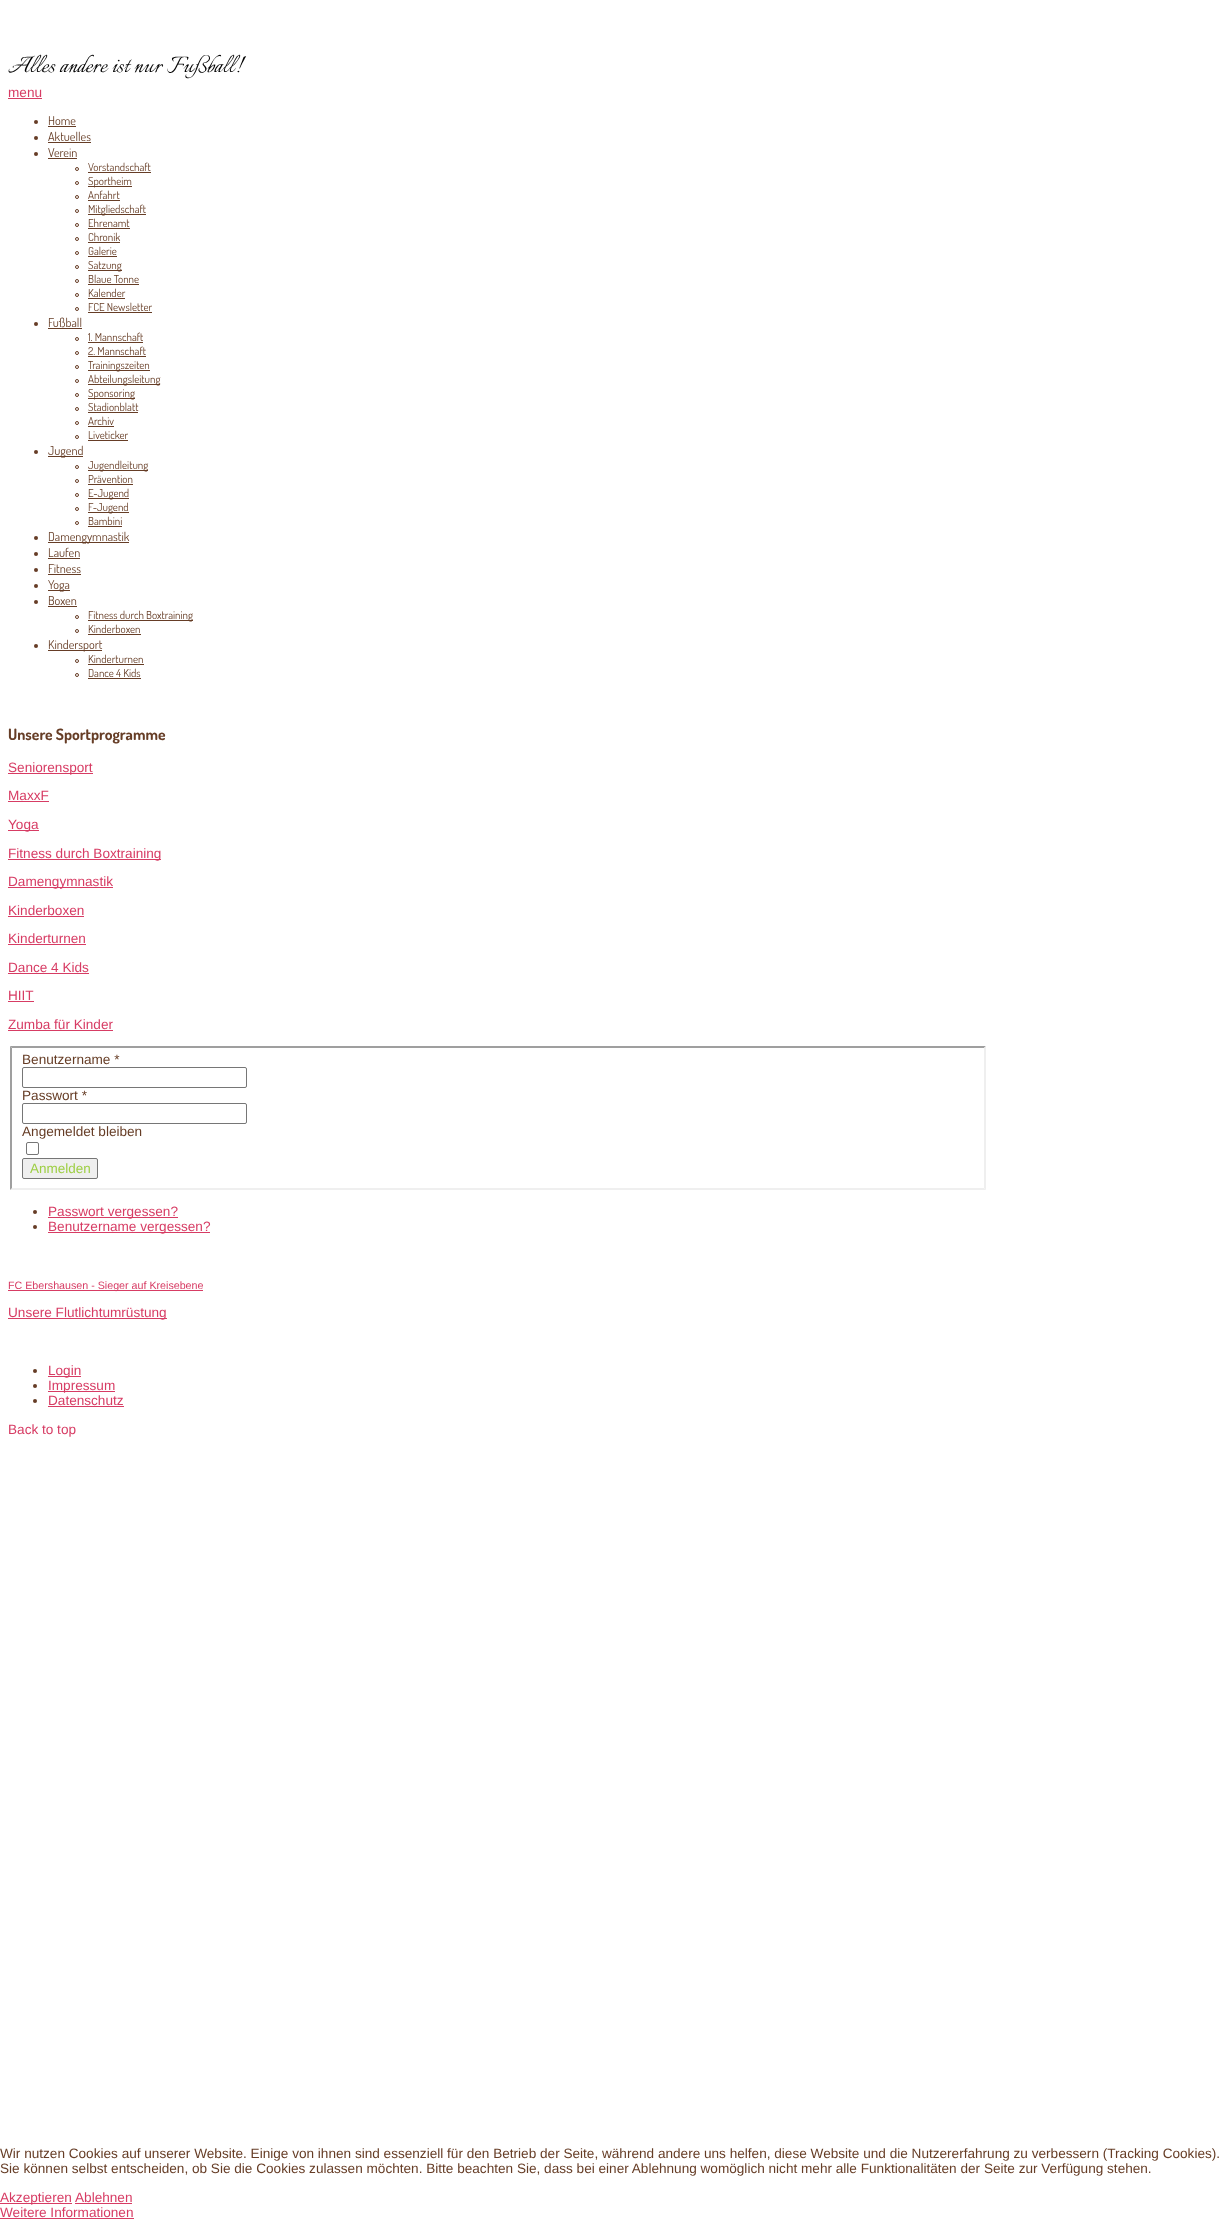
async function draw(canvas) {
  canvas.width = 1229;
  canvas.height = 2220;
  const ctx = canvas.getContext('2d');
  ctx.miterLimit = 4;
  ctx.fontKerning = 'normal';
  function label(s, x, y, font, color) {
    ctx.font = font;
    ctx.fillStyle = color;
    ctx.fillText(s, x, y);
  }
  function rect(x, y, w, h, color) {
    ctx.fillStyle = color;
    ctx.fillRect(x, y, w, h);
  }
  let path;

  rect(0, 0, 1229, 2220, '#fff');
  label('Alles andere ist nur Fußball!', 8, 72, '28px Italianno', '#000');
  label('menu', 8, 97, '13.6px Liberation Sans', '#d73c64');
  rect(8, 98, 34, 1, '#d73c64');
  ctx.fillStyle = '#663d26';
  ctx.beginPath();
  ctx.arc(36, 122, 2, 0, 2 * Math.PI);
  ctx.fill();
  label('Home', 48, 125, '12.25px Dosis', '#663d26');
  rect(48, 126, 28, 1, '#663d26');
  ctx.beginPath();
  ctx.arc(36, 138, 2, 0, 2 * Math.PI);
  ctx.fill();
  label('Aktuelles', 48, 141, '12.25px Dosis', '#663d26');
  rect(48, 142, 43, 1, '#663d26');
  ctx.beginPath();
  ctx.arc(36, 154, 2, 0, 2 * Math.PI);
  ctx.fill();
  label('Verein', 48, 157, '12.25px Dosis', '#663d26');
  rect(48, 158, 29, 1, '#663d26');
  ctx.beginPath();
  ctx.arc(77, 169, 1.5, 0, 2 * Math.PI);
  ctx.strokeStyle = '#663d26';
  ctx.stroke();
  label('Vorstandschaft', 88, 171, '11px Dosis', '#663d26');
  rect(88, 172, 63, 1, '#663d26');
  ctx.beginPath();
  ctx.arc(77, 183, 1.5, 0, 2 * Math.PI);
  ctx.stroke();
  rect(88, 186, 44, 1, '#663d26');
  label('Sportheim', 88, 185, '11px Dosis', '#663d26');
  ctx.beginPath();
  ctx.arc(77, 197, 1.5, 0, 2 * Math.PI);
  ctx.stroke();
  label('Anfahrt', 88, 199, '11px Dosis', '#663d26');
  rect(88, 200, 32, 1, '#663d26');
  ctx.beginPath();
  ctx.arc(77, 211, 1.5, 0, 2 * Math.PI);
  ctx.stroke();
  rect(88, 214, 58, 1, '#663d26');
  label('Mitgliedschaft', 88, 213, '11px Dosis', '#663d26');
  ctx.beginPath();
  ctx.arc(77, 225, 1.5, 0, 2 * Math.PI);
  ctx.stroke();
  label('Ehrenamt', 88, 227, '11px Dosis', '#663d26');
  rect(88, 228, 42, 1, '#663d26');
  ctx.beginPath();
  ctx.arc(77, 239, 1.5, 0, 2 * Math.PI);
  ctx.stroke();
  label('Chronik', 88, 241, '11px Dosis', '#663d26');
  rect(88, 242, 32, 1, '#663d26');
  ctx.beginPath();
  ctx.arc(77, 253, 1.5, 0, 2 * Math.PI);
  ctx.stroke();
  label('Galerie', 88, 255, '11px Dosis', '#663d26');
  rect(88, 256, 29, 1, '#663d26');
  ctx.beginPath();
  ctx.arc(77, 267, 1.5, 0, 2 * Math.PI);
  ctx.stroke();
  rect(88, 270, 34, 1, '#663d26');
  label('Satzung', 88, 269, '11px Dosis', '#663d26');
  ctx.beginPath();
  ctx.arc(77, 281, 1.5, 0, 2 * Math.PI);
  ctx.stroke();
  label('Blaue Tonne', 88, 283, '11px Dosis', '#663d26');
  rect(88, 284, 51, 1, '#663d26');
  ctx.beginPath();
  ctx.arc(77, 295, 1.5, 0, 2 * Math.PI);
  ctx.stroke();
  label('Kalender', 88, 297, '11px Dosis', '#663d26');
  rect(88, 298, 37, 1, '#663d26');
  ctx.beginPath();
  ctx.arc(77, 309, 1.5, 0, 2 * Math.PI);
  ctx.stroke();
  label('FCE Newsletter', 88, 311, '11px Dosis', '#663d26');
  rect(88, 312, 64, 1, '#663d26');
  ctx.beginPath();
  ctx.arc(36, 324, 2, 0, 2 * Math.PI);
  ctx.fill();
  label('Fußball', 48, 327, '12.25px Dosis', '#663d26');
  rect(48, 328, 34, 1, '#663d26');
  ctx.beginPath();
  ctx.arc(77, 339, 1.5, 0, 2 * Math.PI);
  ctx.stroke();
  label('1. Mannschaft', 88, 341, '11px Dosis', '#663d26');
  rect(88, 342, 55, 1, '#663d26');
  ctx.beginPath();
  ctx.arc(77, 353, 1.5, 0, 2 * Math.PI);
  ctx.stroke();
  label('2. Mannschaft', 88, 355, '11px Dosis', '#663d26');
  rect(88, 356, 58, 1, '#663d26');
  ctx.beginPath();
  ctx.arc(77, 367, 1.5, 0, 2 * Math.PI);
  ctx.stroke();
  rect(88, 370, 62, 1, '#663d26');
  label('Trainingszeiten', 88, 369, '11px Dosis', '#663d26');
  ctx.beginPath();
  ctx.arc(77, 381, 1.5, 0, 2 * Math.PI);
  ctx.stroke();
  rect(88, 384, 72, 1, '#663d26');
  label('Abteilungsleitung', 88, 383, '11px Dosis', '#663d26');
  ctx.beginPath();
  ctx.arc(77, 395, 1.5, 0, 2 * Math.PI);
  ctx.stroke();
  rect(88, 398, 47, 1, '#663d26');
  label('Sponsoring', 88, 397, '11px Dosis', '#663d26');
  ctx.beginPath();
  ctx.arc(77, 409, 1.5, 0, 2 * Math.PI);
  ctx.stroke();
  label('Stadionblatt', 88, 411, '11px Dosis', '#663d26');
  rect(88, 412, 50, 1, '#663d26');
  ctx.beginPath();
  ctx.arc(77, 423, 1.5, 0, 2 * Math.PI);
  ctx.stroke();
  label('Archiv', 88, 425, '11px Dosis', '#663d26');
  rect(88, 426, 26, 1, '#663d26');
  ctx.beginPath();
  ctx.arc(77, 437, 1.5, 0, 2 * Math.PI);
  ctx.stroke();
  label('Liveticker', 88, 439, '11px Dosis', '#663d26');
  rect(88, 440, 40, 1, '#663d26');
  ctx.beginPath();
  ctx.arc(36, 452, 2, 0, 2 * Math.PI);
  ctx.fill();
  rect(48, 456, 35, 1, '#663d26');
  label('Jugend', 48, 455, '12.25px Dosis', '#663d26');
  ctx.beginPath();
  ctx.arc(77, 467, 1.5, 0, 2 * Math.PI);
  ctx.stroke();
  rect(88, 470, 60, 1, '#663d26');
  label('Jugendleitung', 88, 469, '11px Dosis', '#663d26');
  ctx.beginPath();
  ctx.arc(77, 481, 1.5, 0, 2 * Math.PI);
  ctx.stroke();
  label('Prävention', 88, 483, '11px Dosis', '#663d26');
  rect(88, 484, 45, 1, '#663d26');
  ctx.beginPath();
  ctx.arc(77, 495, 1.5, 0, 2 * Math.PI);
  ctx.stroke();
  rect(88, 498, 41, 1, '#663d26');
  label('E-Jugend', 88, 497, '11px Dosis', '#663d26');
  ctx.beginPath();
  ctx.arc(77, 509, 1.5, 0, 2 * Math.PI);
  ctx.stroke();
  rect(88, 512, 41, 1, '#663d26');
  label('F-Jugend', 88, 511, '11px Dosis', '#663d26');
  ctx.beginPath();
  ctx.arc(77, 523, 1.5, 0, 2 * Math.PI);
  ctx.stroke();
  label('Bambini', 88, 525, '11px Dosis', '#663d26');
  rect(88, 526, 34, 1, '#663d26');
  ctx.beginPath();
  ctx.arc(36, 538, 2, 0, 2 * Math.PI);
  ctx.fill();
  rect(48, 542, 81, 1, '#663d26');
  label('Damengymnastik', 48, 541, '12.25px Dosis', '#663d26');
  ctx.beginPath();
  ctx.arc(36, 554, 2, 0, 2 * Math.PI);
  ctx.fill();
  label('Laufen', 48, 557, '12.25px Dosis', '#663d26');
  rect(48, 558, 32, 1, '#663d26');
  ctx.beginPath();
  ctx.arc(36, 570, 2, 0, 2 * Math.PI);
  ctx.fill();
  label('Fitness', 48, 573, '12.25px Dosis', '#663d26');
  rect(48, 574, 33, 1, '#663d26');
  ctx.beginPath();
  ctx.arc(36, 586, 2, 0, 2 * Math.PI);
  ctx.fill();
  rect(48, 590, 22, 1, '#663d26');
  label('Yoga', 48, 589, '12.25px Dosis', '#663d26');
  ctx.beginPath();
  ctx.arc(36, 602, 2, 0, 2 * Math.PI);
  ctx.fill();
  label('Boxen', 48, 605, '12.25px Dosis', '#663d26');
  rect(48, 606, 29, 1, '#663d26');
  ctx.beginPath();
  ctx.arc(77, 617, 1.5, 0, 2 * Math.PI);
  ctx.stroke();
  rect(88, 620, 105, 1, '#663d26');
  label('Fitness durch Boxtraining', 88, 619, '11px Dosis', '#663d26');
  ctx.beginPath();
  ctx.arc(77, 631, 1.5, 0, 2 * Math.PI);
  ctx.stroke();
  label('Kinderboxen', 88, 633, '11px Dosis', '#663d26');
  rect(88, 634, 53, 1, '#663d26');
  ctx.beginPath();
  ctx.arc(36, 646, 2, 0, 2 * Math.PI);
  ctx.fill();
  rect(48, 650, 54, 1, '#663d26');
  label('Kindersport', 48, 649, '12.25px Dosis', '#663d26');
  ctx.beginPath();
  ctx.arc(77, 661, 1.5, 0, 2 * Math.PI);
  ctx.stroke();
  label('Kinderturnen', 88, 663, '11px Dosis', '#663d26');
  rect(88, 664, 56, 1, '#663d26');
  ctx.beginPath();
  ctx.arc(77, 675, 1.5, 0, 2 * Math.PI);
  ctx.stroke();
  label('Dance 4 Kids', 88, 677, '11px Dosis', '#663d26');
  rect(88, 678, 53, 1, '#663d26');
  label('Unsere Sportprogramme', 8, 740, 'bold 15.6px Dosis', '#663d26');
  rect(8, 773, 85, 1, '#d73c64');
  label('Seniorensport', 8, 772, '13.6px Liberation Sans', '#d73c64');
  label('MaxxF', 8, 800, '13.6px Liberation Sans', '#d73c64');
  rect(8, 801, 41, 1, '#d73c64');
  rect(8, 830, 31, 1, '#d73c64');
  label('Yoga', 8, 829, '13.6px Liberation Sans', '#d73c64');
  rect(8, 859, 153, 1, '#d73c64');
  label('Fitness durch Boxtraining', 8, 858, '13.6px Liberation Sans', '#d73c64');
  rect(8, 887, 105, 1, '#d73c64');
  label('Damengymnastik', 8, 886, '13.6px Liberation Sans', '#d73c64');
  label('Kinderboxen', 8, 915, '13.6px Liberation Sans', '#d73c64');
  rect(8, 916, 76, 1, '#d73c64');
  label('Kinderturnen', 8, 943, '13.6px Liberation Sans', '#d73c64');
  rect(8, 944, 78, 1, '#d73c64');
  label('Dance 4 Kids', 8, 972, '13.6px Liberation Sans', '#d73c64');
  rect(8, 973, 81, 1, '#d73c64');
  label('HIIT', 8, 1000, '13.6px Liberation Sans', '#d73c64');
  rect(8, 1001, 26, 1, '#d73c64');
  label('Zumba für Kinder', 8, 1029, '13.6px Liberation Sans', '#d73c64');
  rect(8, 1030, 105, 1, '#d73c64');
  ctx.fillStyle = '#9f9f9f';
  path = new Path2D('M10 1046H986L984 1048H12Z');
  ctx.fill(path);
  ctx.fillStyle = '#efefef';
  path = new Path2D('M986 1046V1190L984 1188V1048Z');
  ctx.fill(path);
  path = new Path2D('M986 1190H10L12 1188H984Z');
  ctx.fill(path);
  ctx.fillStyle = '#9f9f9f';
  path = new Path2D('M10 1190V1046L12 1048V1188Z');
  ctx.fill(path);
  label('Benutzername *', 22, 1064, '13.6px Liberation Sans', '#663d26');
  ctx.beginPath();
  ctx.roundRect(22.5, 1067.5, 224, 20, 1.5);
  ctx.strokeStyle = '#767676';
  ctx.stroke();
  label('Passwort *', 22, 1100, '13.6px Liberation Sans', '#663d26');
  ctx.beginPath();
  ctx.roundRect(22.5, 1103.5, 224, 20, 1.5);
  ctx.stroke();
  label('Angemeldet bleiben', 22, 1136, '13.6px Liberation Sans', '#663d26');
  ctx.beginPath();
  ctx.roundRect(26.5, 1142.5, 12, 12, 1.5);
  ctx.stroke();
  ctx.fillStyle = '#efefef';
  ctx.beginPath();
  ctx.roundRect(22.5, 1158.5, 75, 20, 1.5);
  ctx.fill();
  ctx.stroke();
  label('Anmelden', 30, 1173, '13.5px Liberation Sans', '#9ecf45');
  ctx.fillStyle = '#663d26';
  ctx.beginPath();
  ctx.arc(35, 1212, 2, 0, 2 * Math.PI);
  ctx.fill();
  rect(48, 1217, 130, 1, '#d73c64');
  label('Passwort vergessen?', 48, 1216, '13.6px Liberation Sans', '#d73c64');
  ctx.fillStyle = '#663d26';
  ctx.beginPath();
  ctx.arc(35, 1227, 2, 0, 2 * Math.PI);
  ctx.fill();
  rect(48, 1232, 162, 1, '#d73c64');
  label('Benutzername vergessen?', 48, 1231, '13.6px Liberation Sans', '#d73c64');
  rect(8, 1290, 195, 1, '#d73c64');
  label('FC Ebershausen - Sieger auf Kreisebene', 8, 1289, '10.7px Liberation Sans', '#d73c64');
  rect(8, 1318, 159, 1, '#d73c64');
  label('Unsere Flutlichtumrüstung', 8, 1317, '13.6px Liberation Sans', '#d73c64');
  ctx.fillStyle = '#663d26';
  ctx.beginPath();
  ctx.arc(35, 1371, 2, 0, 2 * Math.PI);
  ctx.fill();
  rect(48, 1376, 33, 1, '#d73c64');
  label('Login', 48, 1375, '13.6px Liberation Sans', '#d73c64');
  ctx.fillStyle = '#663d26';
  ctx.beginPath();
  ctx.arc(35, 1386, 2, 0, 2 * Math.PI);
  ctx.fill();
  rect(48, 1391, 67, 1, '#d73c64');
  label('Impressum', 48, 1390, '13.6px Liberation Sans', '#d73c64');
  ctx.fillStyle = '#663d26';
  ctx.beginPath();
  ctx.arc(35, 1401, 2, 0, 2 * Math.PI);
  ctx.fill();
  label('Datenschutz', 48, 1405, '13.6px Liberation Sans', '#d73c64');
  rect(48, 1406, 76, 1, '#d73c64');
  label('Back to top', 8, 1434, '13.6px Liberation Sans', '#d73c64');
  label('Wir nutzen Cookies auf unserer Website. Einige von ihnen sind essenziell für den Betrieb der Seite, während andere uns helfen, diese Website und die Nutzererfahrung zu verbessern (Tracking Cookies).', 0, 2158, '13.6px Liberation Sans', '#663d26');
  label('Sie können selbst entscheiden, ob Sie die Cookies zulassen möchten. Bitte beachten Sie, dass bei einer Ablehnung womöglich nicht mehr alle Funktionalitäten der Seite zur Verfügung stehen.', 0, 2173, '13.6px Liberation Sans', '#663d26');
  rect(0, 2203, 72, 1, '#d73c64');
  label('Akzeptieren', 0, 2202, '13.6px Liberation Sans', '#d73c64');
  label('Ablehnen', 75, 2202, '13.6px Liberation Sans', '#d73c64');
  rect(75, 2203, 57, 1, '#d73c64');
  label('Weitere Informationen', 0, 2217, '13.6px Liberation Sans', '#d73c64');
  rect(0, 2218, 134, 1, '#d73c64');
}

draw(document.querySelector('canvas'));
